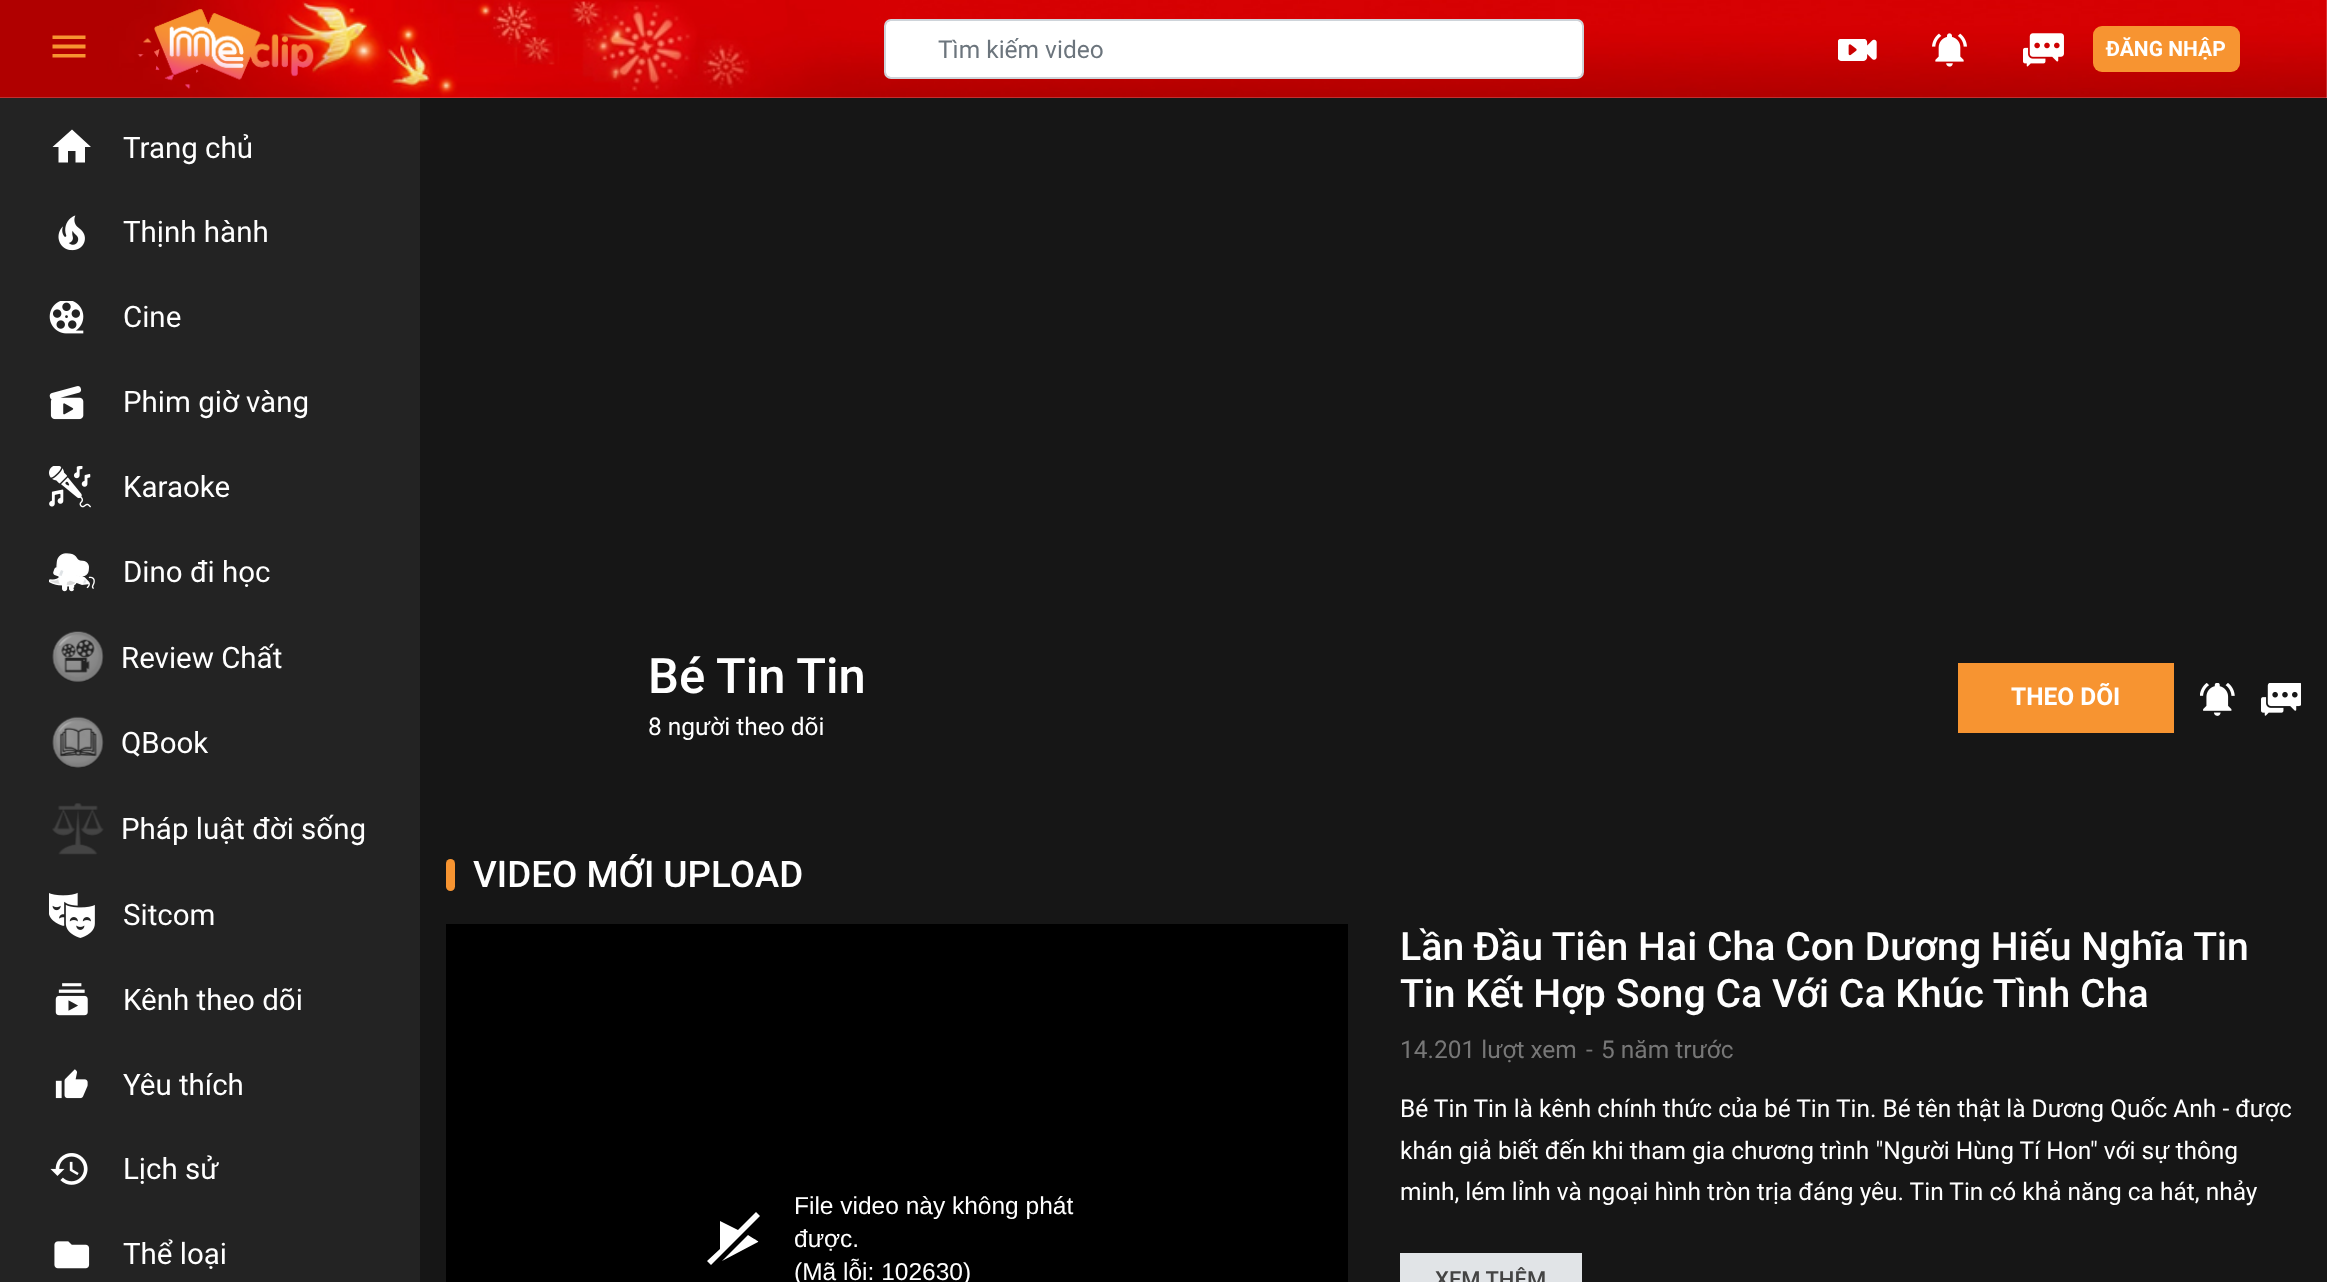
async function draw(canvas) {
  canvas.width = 2327;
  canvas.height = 1282;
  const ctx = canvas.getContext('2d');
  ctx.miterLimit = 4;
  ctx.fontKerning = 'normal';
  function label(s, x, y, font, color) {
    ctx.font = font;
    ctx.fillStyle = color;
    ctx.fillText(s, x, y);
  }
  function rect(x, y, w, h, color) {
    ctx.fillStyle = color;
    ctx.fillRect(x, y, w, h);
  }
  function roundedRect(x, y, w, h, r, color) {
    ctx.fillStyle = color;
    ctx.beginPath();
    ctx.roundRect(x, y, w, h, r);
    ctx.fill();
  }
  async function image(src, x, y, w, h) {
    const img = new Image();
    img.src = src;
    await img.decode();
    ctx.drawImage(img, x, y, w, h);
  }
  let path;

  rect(0, 0, 2327, 1282, '#161616');
  rect(0, 0, 2327, 98, '#fff');
  await image('assets/img1.png', 0, 0, 2327, 98);
  ctx.fillStyle = '#f79431';
  path = new Path2D('M52.5 57.5V54H85.5V57.5ZM52.5 48.5V44.5H85.5V48.5ZM52.5 35.5H85.5V39H52.5Z');
  ctx.fill(path);
  await image('assets/img2.png', 137, 9, 177, 80);
  roundedRect(886, 21, 696, 56, 4, '#fff');
  ctx.beginPath();
  ctx.roundRect(885, 20, 698, 58, 6);
  ctx.strokeStyle = '#ced4da';
  ctx.lineWidth = 2;
  ctx.stroke();
  label('Tìm kiếm video', 938, 58, '24.5px Roboto', '#6c757d');
  await image('assets/img3.png', 1838, 39, 39, 22);
  await image('assets/img4.png', 1932, 33, 35, 34);
  await image('assets/img5.png', 2023, 33, 41, 34);
  roundedRect(2093, 26, 147, 46, 9, '#f79431');
  label('ĐĂNG NHẬP', 2106, 56, 'bold 21px Roboto', '#fff');
  rect(0, 98, 420, 1184, '#232323');
  ctx.fillStyle = '#fff';
  path = new Path2D('M68 162.5V151H75.5V162.5H85V147H91L72 129.5L52.5 147H58.5V162.5');
  ctx.fill(path);
  label('Trang chủ', 123, 158, '29.5px Roboto', '#fff');
  await image('assets/img6.png', 58, 215, 27, 36);
  label('Thịnh hành', 123, 242, '29.5px Roboto', '#fff');
  await image('assets/img7.png', 49, 301, 35, 33);
  label('Cine', 123, 327, '29.5px Roboto', '#fff');
  await image('assets/img8.png', 49, 386, 35, 34);
  label('Phim giờ vàng', 123, 412, '29.5px Roboto', '#fff');
  await image('assets/img9.png', 49, 466, 42, 42);
  label('Karaoke', 123, 497, '29.5px Roboto', '#fff');
  await image('assets/img10.png', 49, 553, 46, 39);
  label('Dino đi học', 123, 582, '29.5px Roboto', '#fff');
  await image('assets/img11.png', 52, 631, 52, 51);
  label('Review Chất', 121, 668, '29.5px Roboto', '#fff');
  await image('assets/img12.png', 52, 716, 52, 52);
  label('QBook', 121, 753, '29.5px Roboto', '#fff');
  await image('assets/img13.png', 52, 803, 52, 52);
  label('Pháp luật đời sống', 121, 839, '29.5px Roboto', '#fff');
  await image('assets/img14.png', 49, 892, 46, 46);
  label('Sitcom', 123, 925, '29.5px Roboto', '#fff');
  await image('assets/img15.png', 55, 983, 33, 33);
  label('Kênh theo dõi', 123, 1010, '29.5px Roboto', '#fff');
  await image('assets/img16.png', 55, 1069, 33, 30);
  label('Yêu thích', 123, 1095, '29.5px Roboto', '#fff');
  await image('assets/img17.png', 50, 1153, 38, 32);
  label('Lịch sử', 123, 1179, '29.5px Roboto', '#fff');
  await image('assets/img18.png', 54, 1241, 36, 28);
  label('Thể loại', 123, 1264, '29.5px Roboto', '#fff');
  label('Bé Tin Tin', 648, 693, '500 49px Roboto', '#fff');
  label('8 người theo dõi', 648, 735, '24.5px Roboto', '#fff');
  rect(1958, 663, 216, 70, '#f79431');
  label('THEO DÕI', 2011, 705, 'bold 24.5px Roboto', '#fff');
  await image('assets/img19.png', 2200, 683, 35, 33);
  await image('assets/img20.png', 2261, 683, 40, 33);
  roundedRect(446, 859, 9, 32, 4.5, '#f79431');
  label('VIDEO MỚI UPLOAD', 473, 887, '500 36.75px Roboto', '#fff');
  rect(446, 924, 902, 358, '#000');
  ctx.fillStyle = '#fff';
  path = new Path2D('M758 1242L722 1261L748 1235C757 1241 759 1241 758 1242ZM756 1212L738 1230L720 1221V1249L707 1261L711 1265L760 1216Z');
  ctx.fill(path);
  label('File video này không phát', 794, 1214, '24.5px Liberation Sans', '#fff');
  label('được.', 794, 1247, '24.5px Liberation Sans', '#fff');
  label('(Mã lỗi: 102630)', 794, 1280, '24.5px Liberation Sans', '#fff');
  label('Lần Đầu Tiên Hai Cha Con Dương Hiếu Nghĩa Tin', 1400, 960, '500 39.2px Roboto', '#fff');
  label('Tin Kết Hợp Song Ca Với Ca Khúc Tình Cha', 1400, 1007, '500 39.2px Roboto', '#fff');
  label('14.201 lượt xem', 1400, 1058, '24.5px Roboto', '#777');
  label('-', 1586, 1058, '24.5px Roboto', '#777');
  label('5 năm trước', 1601, 1058, '24.5px Roboto', '#777');
  label('Bé Tin Tin là kênh chính thức của bé Tin Tin. Bé tên thật là Dương Quốc Anh - được', 1400, 1117, '24.5px Roboto', '#fff');
  label('khán giả biết đến khi tham gia chương trình "Người Hùng Tí Hon" với sự thông', 1400, 1159, '24.5px Roboto', '#fff');
  label('minh, lém lỉnh và ngoại hình tròn trịa đáng yêu. Tin Tin có khả năng ca hát, nhảy', 1400, 1200, '24.5px Roboto', '#fff');
  rect(1400, 1253, 182, 29, '#e1e4e7');
  label('XEM THÊM', 1435, 1287, '500 22px Roboto', '#444');
}

draw(document.querySelector('canvas'));
